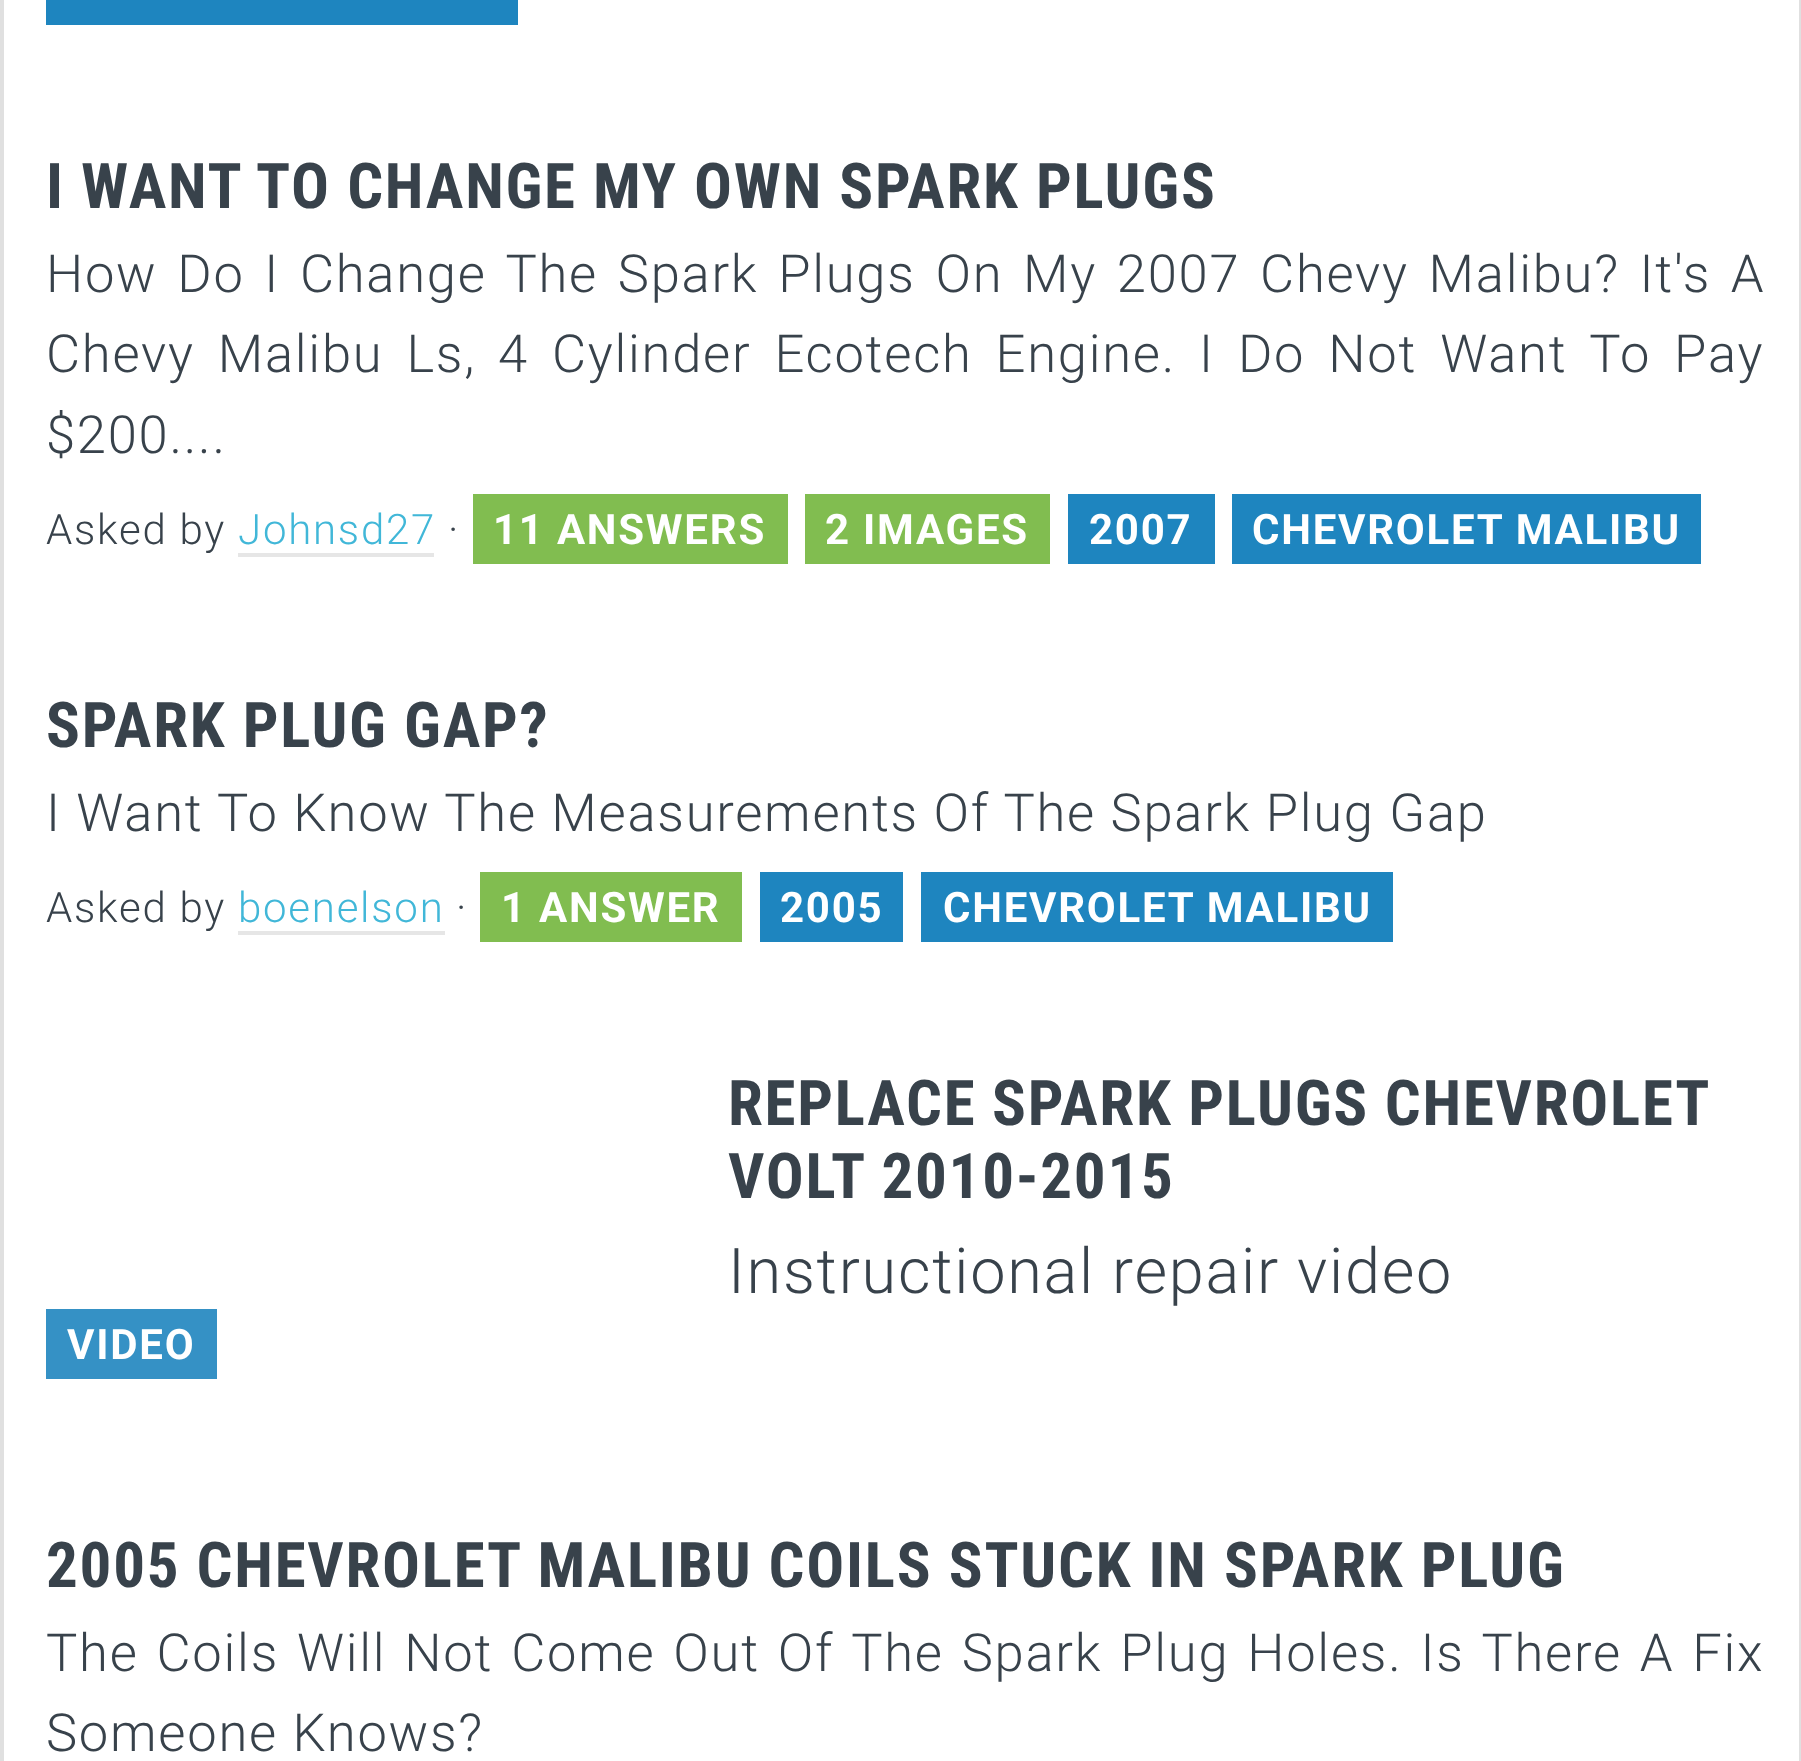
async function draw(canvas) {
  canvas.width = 1801;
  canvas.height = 1761;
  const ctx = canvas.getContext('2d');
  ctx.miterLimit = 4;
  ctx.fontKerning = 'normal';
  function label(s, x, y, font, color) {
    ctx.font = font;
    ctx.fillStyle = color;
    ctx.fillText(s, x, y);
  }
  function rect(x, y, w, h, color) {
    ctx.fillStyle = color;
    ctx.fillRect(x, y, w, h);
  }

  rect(0, 0, 1801, 1761, '#fff');
  ctx.strokeStyle = '#e0e0e0';
  ctx.lineWidth = 4;
  ctx.strokeRect(2, -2, 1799, 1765);
  rect(46, 0, 472, 25, '#1e85bf');
  ctx.letterSpacing = '1.75px';
  label('I WANT TO CHANGE MY OWN SPARK PLUGS', 46, 208, 'bold 63px Roboto Condensed', '#38424b');
  ctx.wordSpacing = '5.25px';
  label('How Do I Change The Spark Plugs On My 2007 Chevy Malibu? It\'s A', 46, 292, '300 52.5px Roboto', '#38424b');
  ctx.wordSpacing = '8.5px';
  label('Chevy Malibu Ls,', 46, 372, '300 52.5px Roboto', '#38424b');
  label('4 Cylinder Ecotech Engine. I Do Not Want To Pay', 498, 372, '300 52.5px Roboto', '#38424b');
  ctx.wordSpacing = '0px';
  label('$200....', 46, 453, '300 52.5px Roboto', '#38424b');
  label('Asked by', 46, 544, '300 42px Roboto', '#38424b');
  label('Johnsd27', 238, 544, '300 42px Roboto', '#41b7d8');
  rect(238, 553, 196, 4, '#e6e6e6');
  label('·', 448, 544, '300 42px Roboto', '#38424b');
  rect(473, 494, 315, 70, '#81bd50');
  label('11 ANSWERS', 493, 544, 'bold 42px Roboto', '#fff');
  rect(805, 494, 245, 70, '#81bd50');
  label('2 IMAGES', 825, 544, 'bold 42px Roboto', '#fff');
  rect(1068, 494, 147, 70, '#1e85bf');
  label('2007', 1089, 544, 'bold 42px Roboto', '#fff');
  rect(1232, 494, 469, 70, '#1e85bf');
  label('CHEVROLET MALIBU', 1252, 544, 'bold 42px Roboto', '#fff');
  label('SPARK PLUG GAP?', 46, 747, 'bold 63px Roboto Condensed', '#38424b');
  label('I Want To Know The Measurements Of The Spark Plug Gap', 46, 831, '300 52.5px Roboto', '#38424b');
  label('Asked by', 46, 922, '300 42px Roboto', '#38424b');
  label('boenelson', 238, 922, '300 42px Roboto', '#41b7d8');
  rect(238, 931, 207, 4, '#e6e6e6');
  label('·', 456, 922, '300 42px Roboto', '#38424b');
  rect(480, 872, 262, 70, '#81bd50');
  label('1 ANSWER', 501, 922, 'bold 42px Roboto', '#fff');
  rect(760, 872, 143, 70, '#1e85bf');
  label('2005', 780, 922, 'bold 42px Roboto', '#fff');
  rect(921, 872, 472, 70, '#1e85bf');
  label('CHEVROLET MALIBU', 943, 922, 'bold 42px Roboto', '#fff');
  ctx.wordSpacing = '-0.5px';
  label('REPLACE SPARK PLUGS CHEVROLET', 728, 1125, 'bold 63px Roboto Condensed', '#38424b');
  ctx.wordSpacing = '0px';
  label('VOLT 2010-2015', 728, 1198, 'bold 63px Roboto Condensed', '#38424b');
  label('Instructional repair video', 728, 1293, '300 63px Roboto', '#38424b');
  rect(46, 1309, 171, 70, '#3591c5');
  label('VIDEO', 67, 1359, 'bold 42px Roboto', '#fff');
  label('2005 CHEVROLET MALIBU COILS STUCK IN SPARK PLUG', 46, 1587, 'bold 63px Roboto Condensed', '#38424b');
  ctx.wordSpacing = '3.4px';
  label('The Coils Will Not Come Out Of The Spark Plug Holes. Is There A Fix', 46, 1671, '300 52.5px Roboto', '#38424b');
  ctx.wordSpacing = '0px';
  label('Someone Knows?', 46, 1751, '300 52.5px Roboto', '#38424b');
}

draw(document.querySelector('canvas'));
